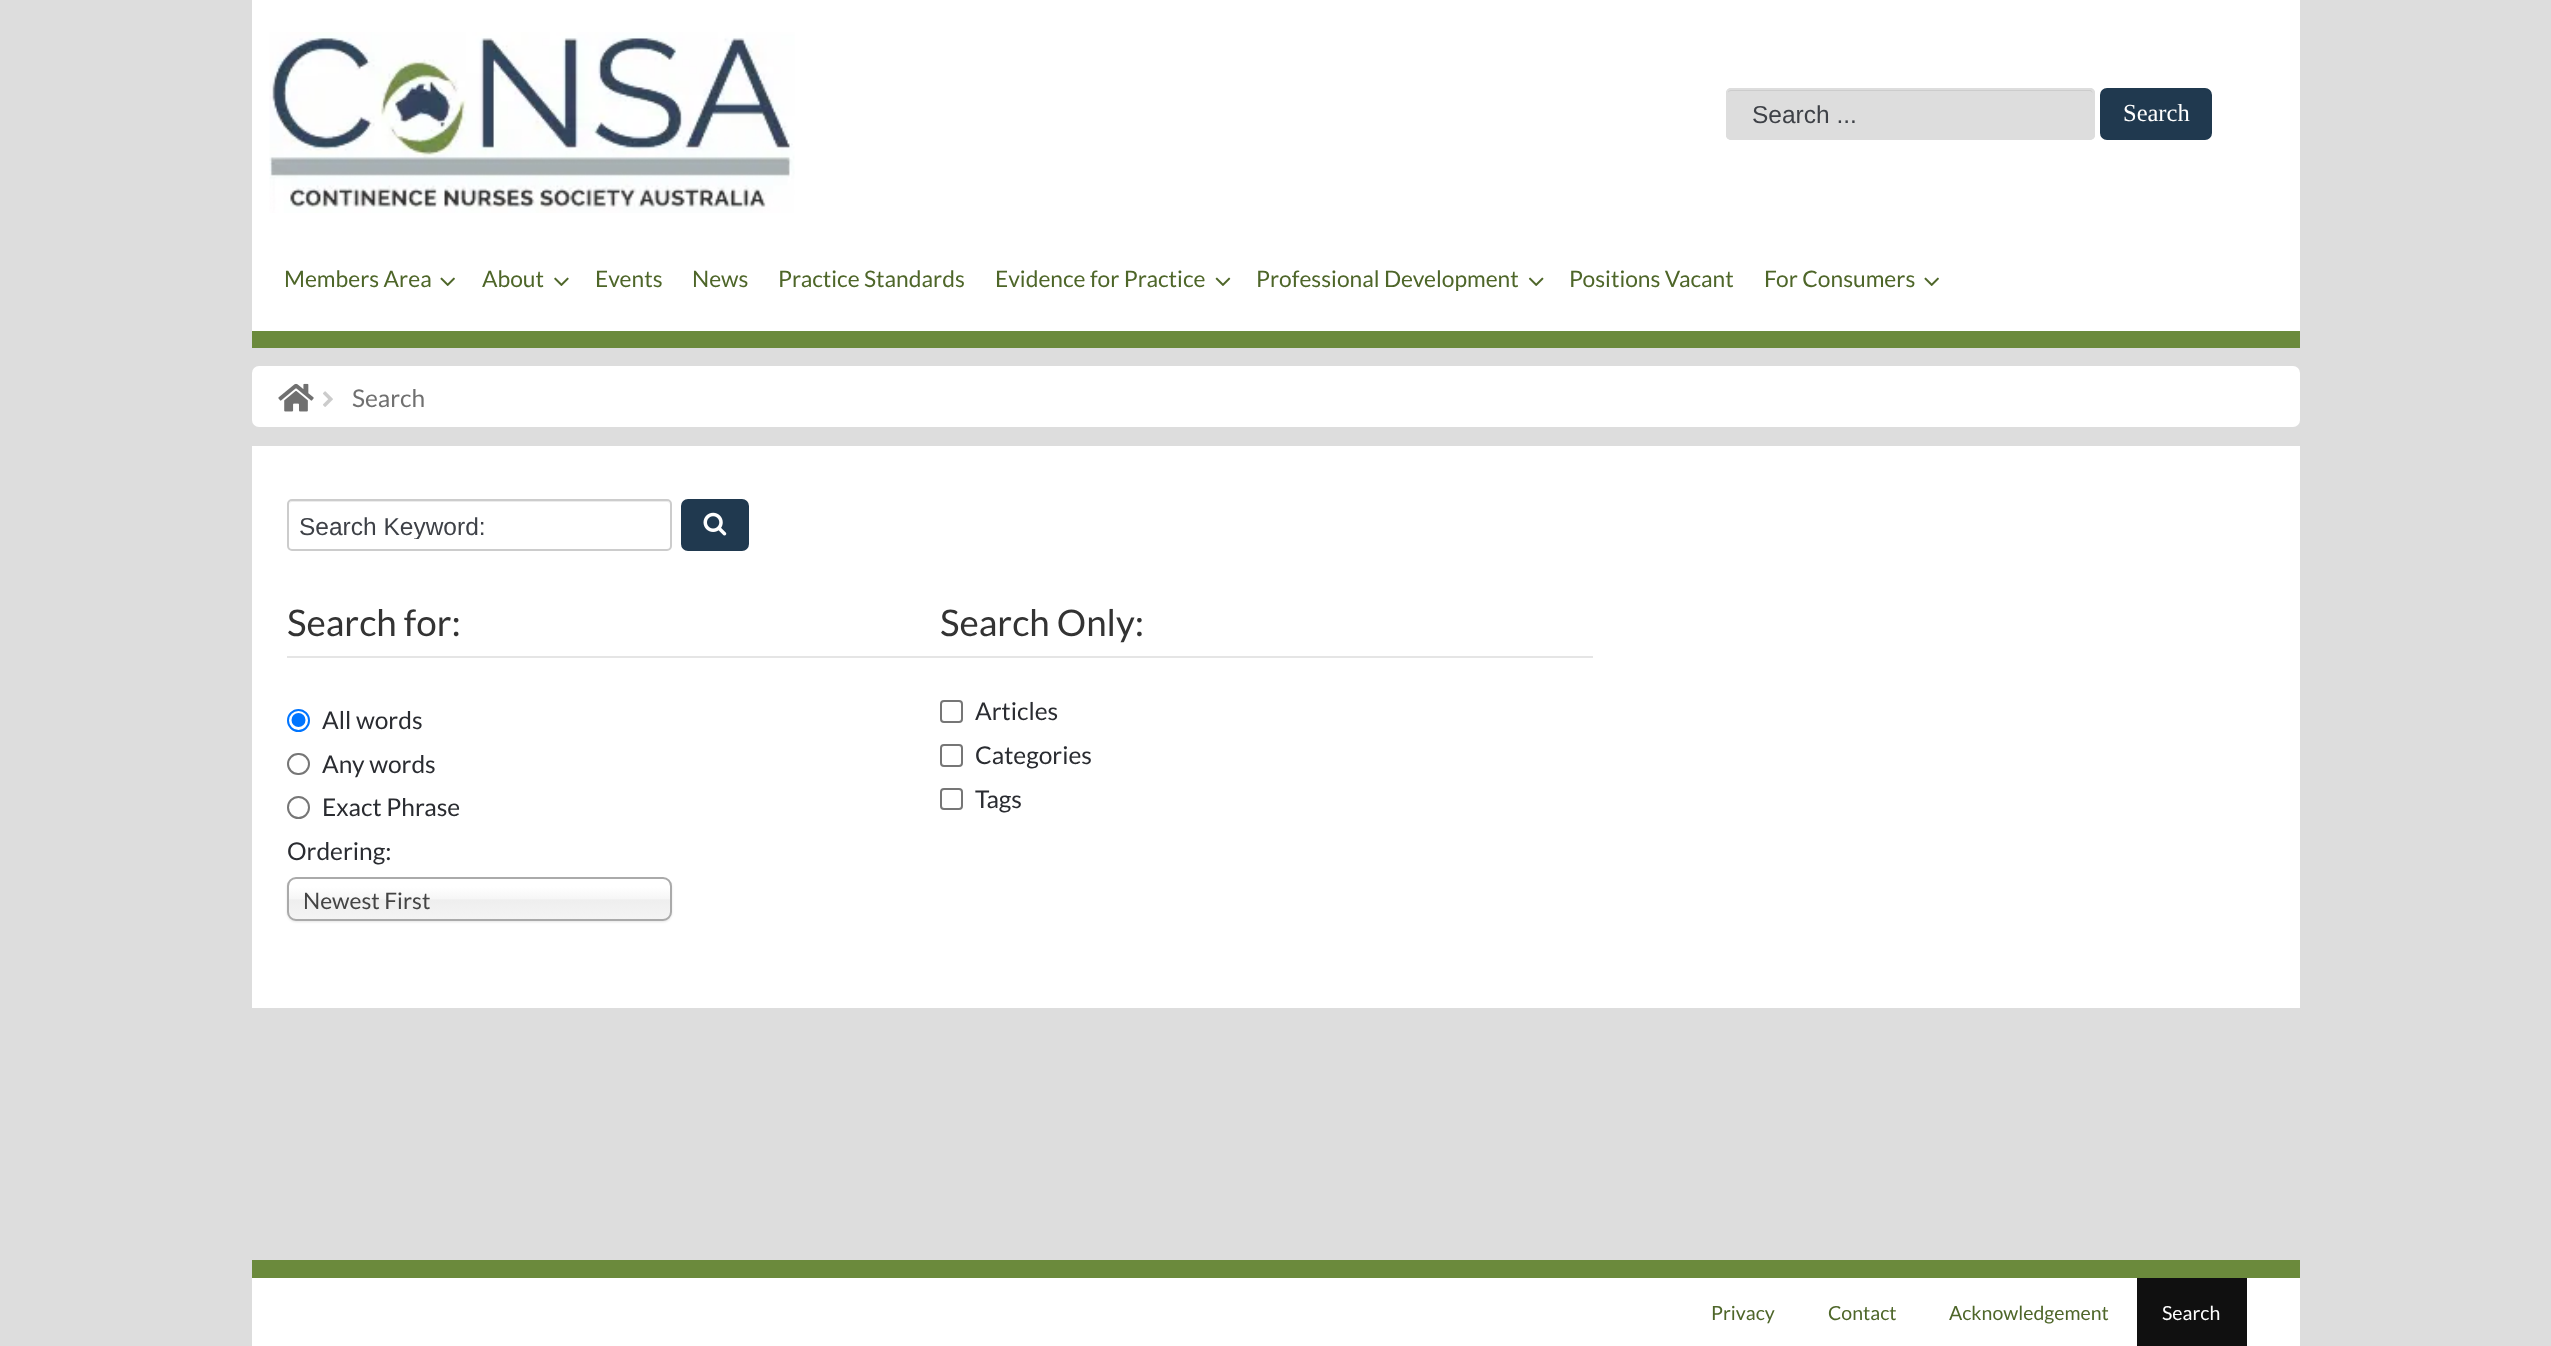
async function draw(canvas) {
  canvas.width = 2551;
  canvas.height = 1346;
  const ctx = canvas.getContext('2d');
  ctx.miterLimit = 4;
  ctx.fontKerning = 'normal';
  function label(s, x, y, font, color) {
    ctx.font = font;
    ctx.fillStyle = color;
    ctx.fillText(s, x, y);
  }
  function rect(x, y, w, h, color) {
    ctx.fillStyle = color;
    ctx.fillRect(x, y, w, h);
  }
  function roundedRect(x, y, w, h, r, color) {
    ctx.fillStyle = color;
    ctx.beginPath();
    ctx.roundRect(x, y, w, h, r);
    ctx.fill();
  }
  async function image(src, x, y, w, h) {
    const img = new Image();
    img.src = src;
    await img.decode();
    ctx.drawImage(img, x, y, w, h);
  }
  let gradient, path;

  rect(0, 0, 2551, 1346, '#ddd');
  rect(252, 0, 2048, 331, '#fff');
  rect(252, 331, 2048, 17, '#6b8a3c');
  await image('assets/img1.png', 269, 32, 526, 181);
  roundedRect(1726, 88, 369, 52, 5, '#ddd');
  ctx.fillStyle = '#ccc';
  path = new Path2D('M1731 91H2090C2091 91 2093 93 2093 94L2092 91L2090 89H1731C1728 89 1727 91 1727 94C1727 93 1729 91 1731 91Z');
  ctx.fill(path);
  ctx.beginPath();
  ctx.roundRect(1727, 89, 367, 50, 4);
  ctx.strokeStyle = '#ddd';
  ctx.lineWidth = 2;
  ctx.stroke();
  label('Search ...', 1752, 123, '24.5px Liberation Sans', '#3e4147');
  ctx.fillStyle = '#20394f';
  ctx.beginPath();
  ctx.roundRect(2101, 89, 110, 50, 6);
  ctx.fill();
  ctx.strokeStyle = '#20394f';
  ctx.stroke();
  label('Search', 2123, 121, '24.5px Liberation Serif', '#fff');
  label('Members Area', 284, 287, '22.75px Lato', '#4e6629');
  await image('assets/img2.png', 440, 277, 15, 9);
  label('About', 482, 287, '22.75px Lato', '#4e6629');
  await image('assets/img3.png', 554, 277, 15, 9);
  label('Events', 595, 287, '22.75px Lato', '#4e6629');
  label('News', 692, 287, '22.75px Lato', '#4e6629');
  label('Practice Standards', 778, 287, '22.75px Lato', '#4e6629');
  label('Evidence for Practice', 995, 287, '22.75px Lato', '#4e6629');
  await image('assets/img4.png', 1215, 277, 16, 9);
  label('Professional Development', 1256, 287, '22.75px Lato', '#4e6629');
  await image('assets/img5.png', 1528, 277, 16, 9);
  label('Positions Vacant', 1569, 287, '22.75px Lato', '#4e6629');
  label('For Consumers', 1764, 287, '22.75px Lato', '#4e6629');
  await image('assets/img2.png', 1924, 277, 15, 9);
  roundedRect(252, 366, 2048, 61, 7, '#fff');
  await image('assets/img6.png', 278, 383, 36, 29);
  await image('assets/img7.png', 323, 391, 10, 16);
  label('Search', 352, 407, '24.5px Lato', '#707070');
  rect(252, 446, 2048, 562, '#fff');
  ctx.fillStyle = '#ececec';
  path = new Path2D('M292 502H667C669 502 670 504 670 506C670 503 669 501 666 501H293C290 501 289 503 289 506C289 504 290 502 292 502Z');
  ctx.fill(path);
  ctx.beginPath();
  ctx.roundRect(288, 500, 383, 50, 4);
  ctx.strokeStyle = '#ccc';
  ctx.stroke();
  ctx.save();
  ctx.beginPath();
  ctx.rect(299, 511, 361, 28);
  ctx.clip();
  label('Search Keyword:', 299, 535, '24.5px Liberation Sans', '#3e4147');
  ctx.restore();
  ctx.fillStyle = '#20394f';
  ctx.beginPath();
  ctx.roundRect(682, 500, 66, 50, 6);
  ctx.fill();
  ctx.strokeStyle = '#20394f';
  ctx.stroke();
  await image('assets/img8.png', 703, 512, 24, 24);
  rect(287, 656, 1306, 2, '#e5e5e5');
  label('Search for:', 287, 636, '36.75px Lato', '#333');
  ctx.beginPath();
  ctx.arc(298.5, 720.5, 10.5, 0, 2 * Math.PI);
  ctx.strokeStyle = '#0075ff';
  ctx.stroke();
  ctx.fillStyle = '#0075ff';
  ctx.beginPath();
  ctx.arc(298.5, 720, 7, 0, 2 * Math.PI);
  ctx.fill();
  label('All words', 322, 729, '24.5px Lato', '#2a2c31');
  ctx.beginPath();
  ctx.roundRect(288, 754, 21, 20, 10);
  ctx.strokeStyle = '#767676';
  ctx.stroke();
  label('Any words', 322, 773, '24.5px Lato', '#2a2c31');
  ctx.beginPath();
  ctx.arc(298.5, 807.5, 10.5, 0, 2 * Math.PI);
  ctx.stroke();
  label('Exact Phrase', 322, 816, '24.5px Lato', '#2a2c31');
  label('Ordering:', 287, 860, '24.5px Lato', '#2a2c31');
  ctx.fillStyle = '#0000001a';
  ctx.filter = 'blur(1px)';
  ctx.beginPath();
  ctx.roundRect(287, 879, 385, 43, 9);
  ctx.fill();
  ctx.filter = 'none';
  gradient = ctx.createLinearGradient(480, 879, 480, 919);
  gradient.addColorStop(0.2, '#fff');
  gradient.addColorStop(0.5, '#f6f6f6');
  gradient.addColorStop(0.52, '#eee');
  gradient.addColorStop(1, '#f4f4f4');
  ctx.fillStyle = gradient;
  ctx.beginPath();
  ctx.roundRect(289, 879, 381, 40, 7);
  ctx.fill();
  ctx.beginPath();
  ctx.roundRect(288, 878, 383, 42, 8);
  ctx.strokeStyle = '#aaa';
  ctx.stroke();
  label('Newest First', 303, 909, '22.75px Lato', '#444');
  label('Search Only:', 940, 636, '36.75px Lato', '#333');
  ctx.beginPath();
  ctx.roundRect(941, 701, 21, 21, 3);
  ctx.strokeStyle = '#767676';
  ctx.stroke();
  label('Articles', 975, 720, '24.5px Lato', '#2a2c31');
  ctx.beginPath();
  ctx.roundRect(941, 745, 21, 21, 3);
  ctx.stroke();
  label('Categories', 975, 764, '24.5px Lato', '#2a2c31');
  ctx.beginPath();
  ctx.roundRect(941, 789, 21, 20, 3);
  ctx.stroke();
  label('Tags', 975, 808, '24.5px Lato', '#2a2c31');
  rect(252, 1278, 2048, 68, '#fff');
  rect(252, 1260, 2048, 18, '#6b8a3c');
  label('Privacy', 1711, 1320, '19.5px Lato', '#4e6629');
  label('Contact', 1828, 1320, '19.5px Lato', '#4e6629');
  label('Acknowledgement', 1949, 1320, '19.5px Lato', '#4e6629');
  rect(2137, 1278, 110, 68, '#101010');
  label('Search', 2162, 1320, '19.5px Lato', '#fff');
}

draw(document.querySelector('canvas'));
